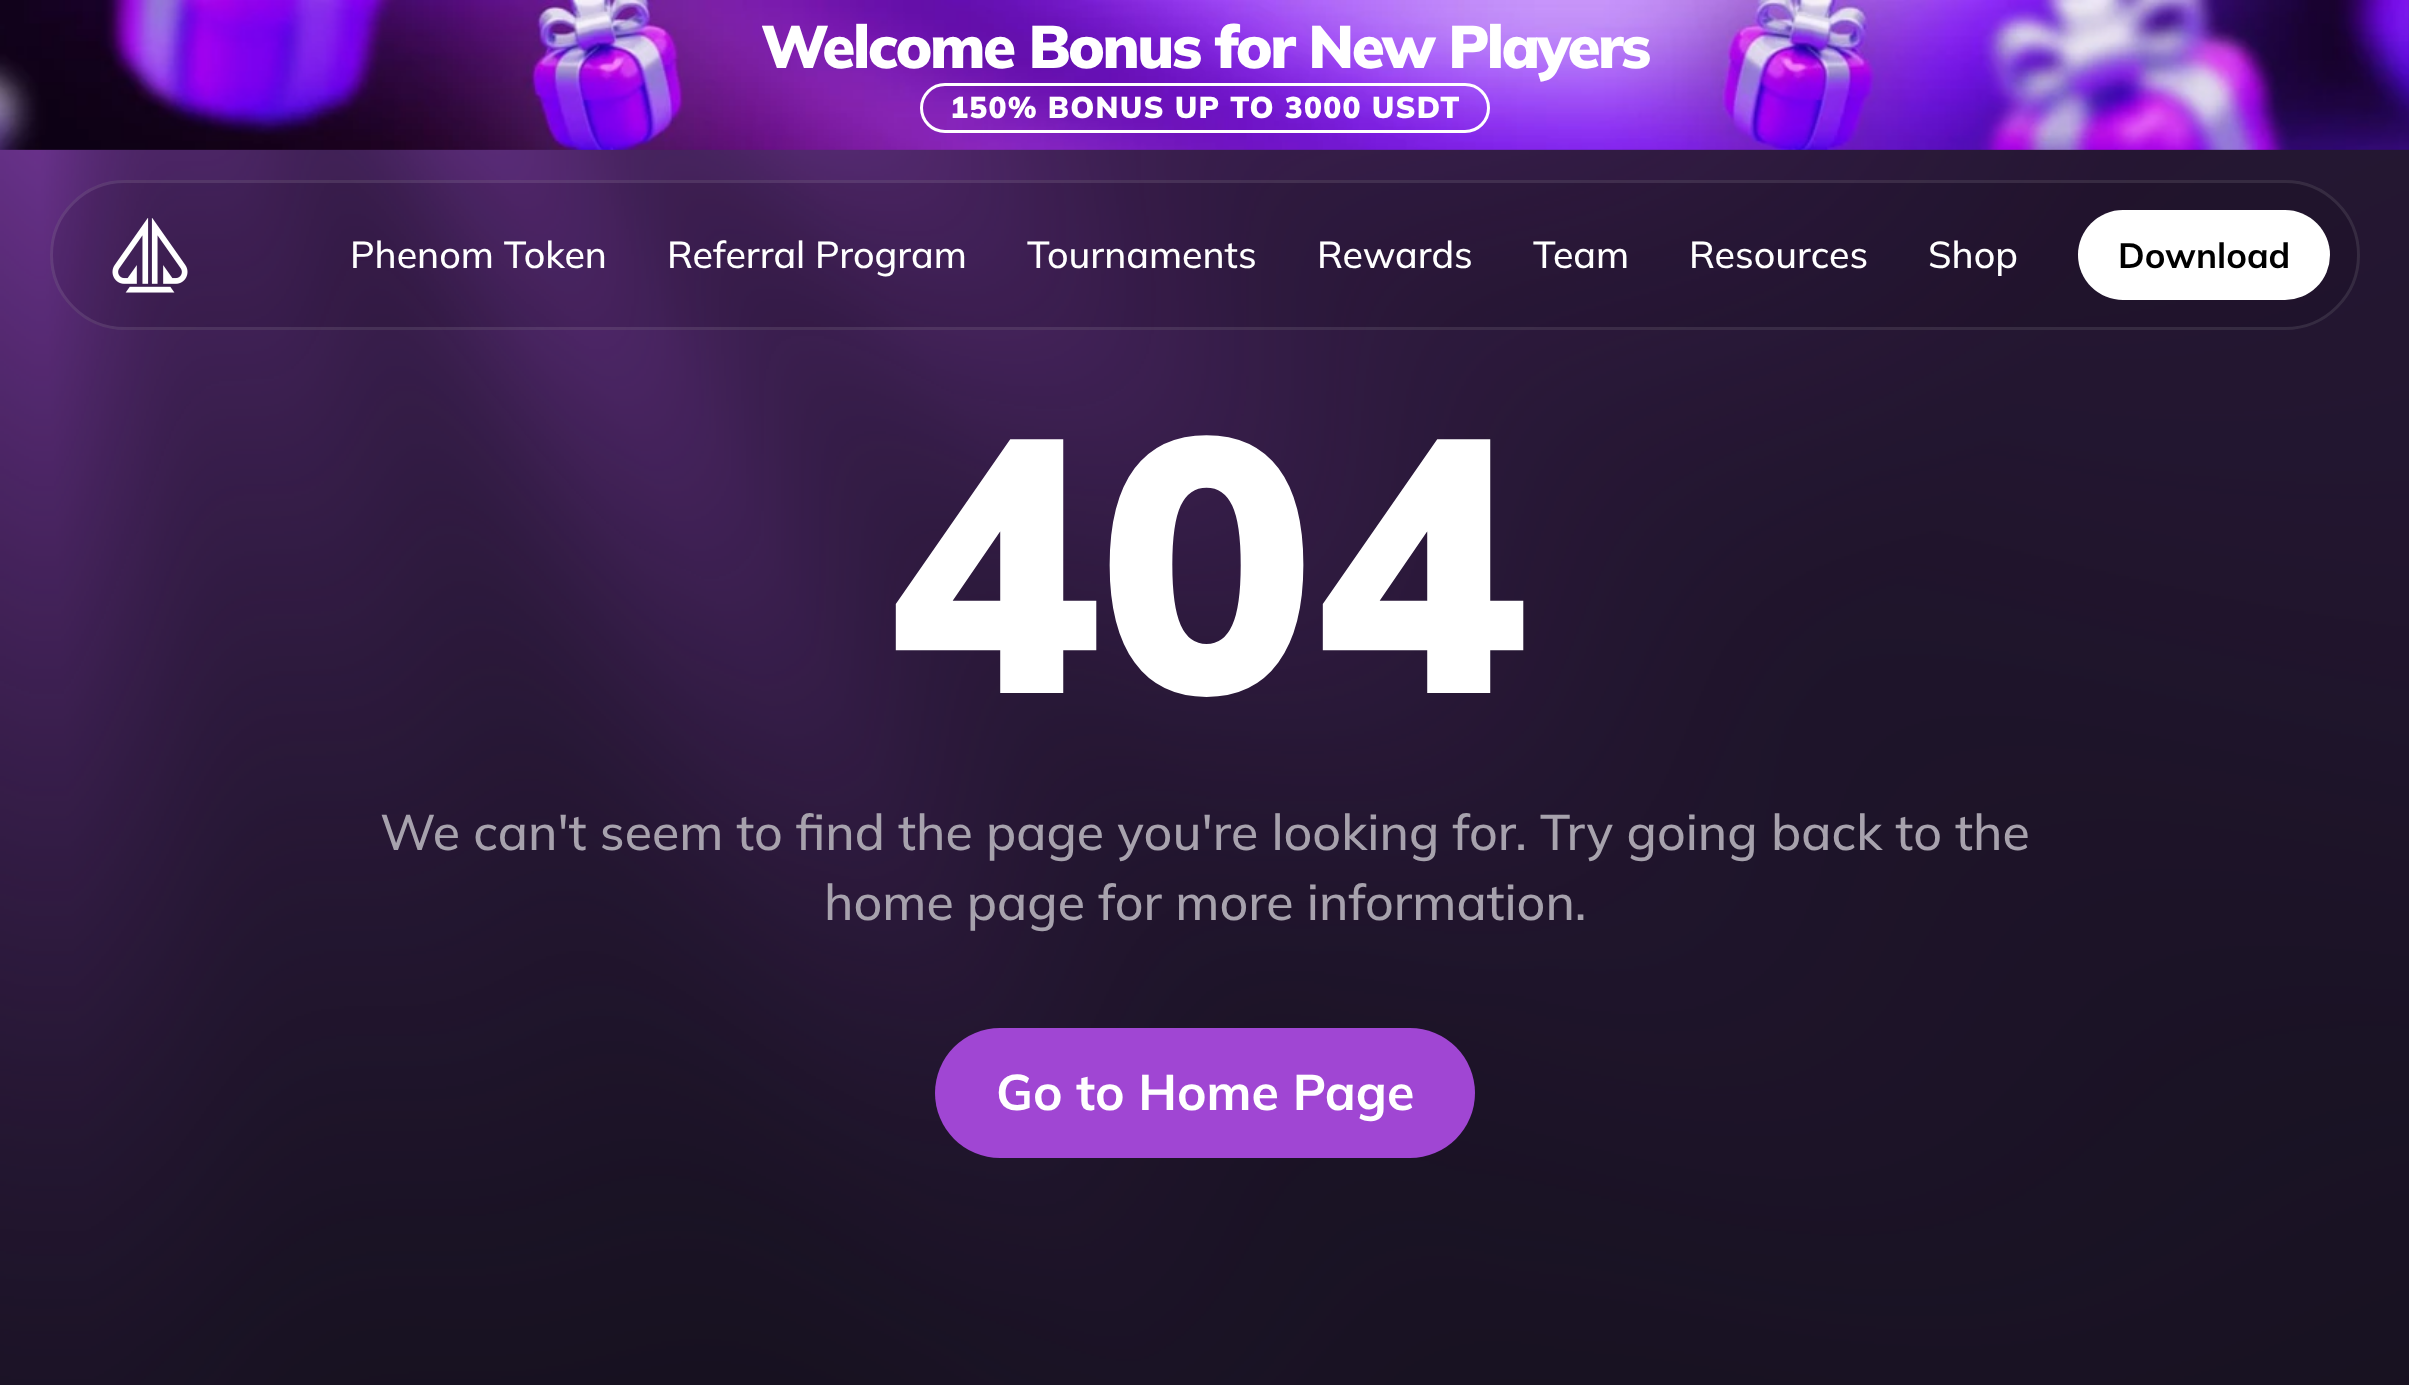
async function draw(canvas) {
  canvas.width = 2409;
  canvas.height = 1385;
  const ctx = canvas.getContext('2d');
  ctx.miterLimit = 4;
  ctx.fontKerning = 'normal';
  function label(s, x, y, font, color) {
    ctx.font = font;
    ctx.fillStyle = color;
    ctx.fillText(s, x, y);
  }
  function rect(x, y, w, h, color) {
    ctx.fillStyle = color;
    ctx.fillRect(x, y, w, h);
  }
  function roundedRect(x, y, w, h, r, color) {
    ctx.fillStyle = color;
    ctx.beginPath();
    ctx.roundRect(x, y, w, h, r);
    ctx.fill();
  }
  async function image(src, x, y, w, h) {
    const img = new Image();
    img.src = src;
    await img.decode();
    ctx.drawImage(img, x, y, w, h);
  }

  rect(0, 0, 2409, 1385, '#12101a');
  await image('assets/img3.png', 0, 0, 2409, 1385);
  await image('assets/img1.png', 0, 0, 2409, 150);
  ctx.letterSpacing = '-2.5px';
  label('Welcome Bonus for New Players', 761, 68, '900 60px Mulish', '#fff');
  ctx.beginPath();
  ctx.roundRect(921.5, 84.5, 567, 47, 23.5);
  ctx.strokeStyle = '#fff';
  ctx.lineWidth = 3;
  ctx.stroke();
  ctx.letterSpacing = '1.25px';
  label('150% BONUS UP TO 3000 USDT', 950, 118, '900 30px Mulish', '#fff');
  roundedRect(50, 180, 2310, 150, 75, '#0000001a');
  await image('assets/img2.png', 112, 218, 76, 75);
  roundedRect(2078, 210, 252, 90, 45, '#fff');
  ctx.beginPath();
  ctx.roundRect(51.5, 181.5, 2307, 147, 73.5);
  ctx.strokeStyle = '#ffffff1a';
  ctx.stroke();
  ctx.letterSpacing = '0px';
  label('Phenom Token', 350, 268, '500 37.5px Mulish', '#fff');
  label('Referral Program', 667, 268, '500 37.5px Mulish', '#fff');
  label('Tournaments', 1027, 268, '500 37.5px Mulish', '#fff');
  label('Rewards', 1317, 268, '500 37.5px Mulish', '#fff');
  label('Team', 1533, 268, '500 37.5px Mulish', '#fff');
  label('Resources', 1689, 268, '500 37.5px Mulish', '#fff');
  label('Shop', 1928, 268, '500 37.5px Mulish', '#fff');
  label('Download', 2118, 268, 'bold 35px Mulish', '#000');
  ctx.letterSpacing = '-2.5px';
  label('404', 885, 693, '900 360px Mulish', '#fff');
  ctx.letterSpacing = '0px';
  label('We can\'t seem to find the page you\'re looking for. Try going back to the', 380, 850, '500 50px Mulish', '#a7a2ad');
  label('home page for more information.', 824, 920, '500 50px Mulish', '#a7a2ad');
  roundedRect(935, 1028, 540, 130, 65, '#a046d3');
  label('Go to Home Page', 996, 1110, 'bold 50px Mulish', '#fff');
}

draw(document.querySelector('canvas'));
